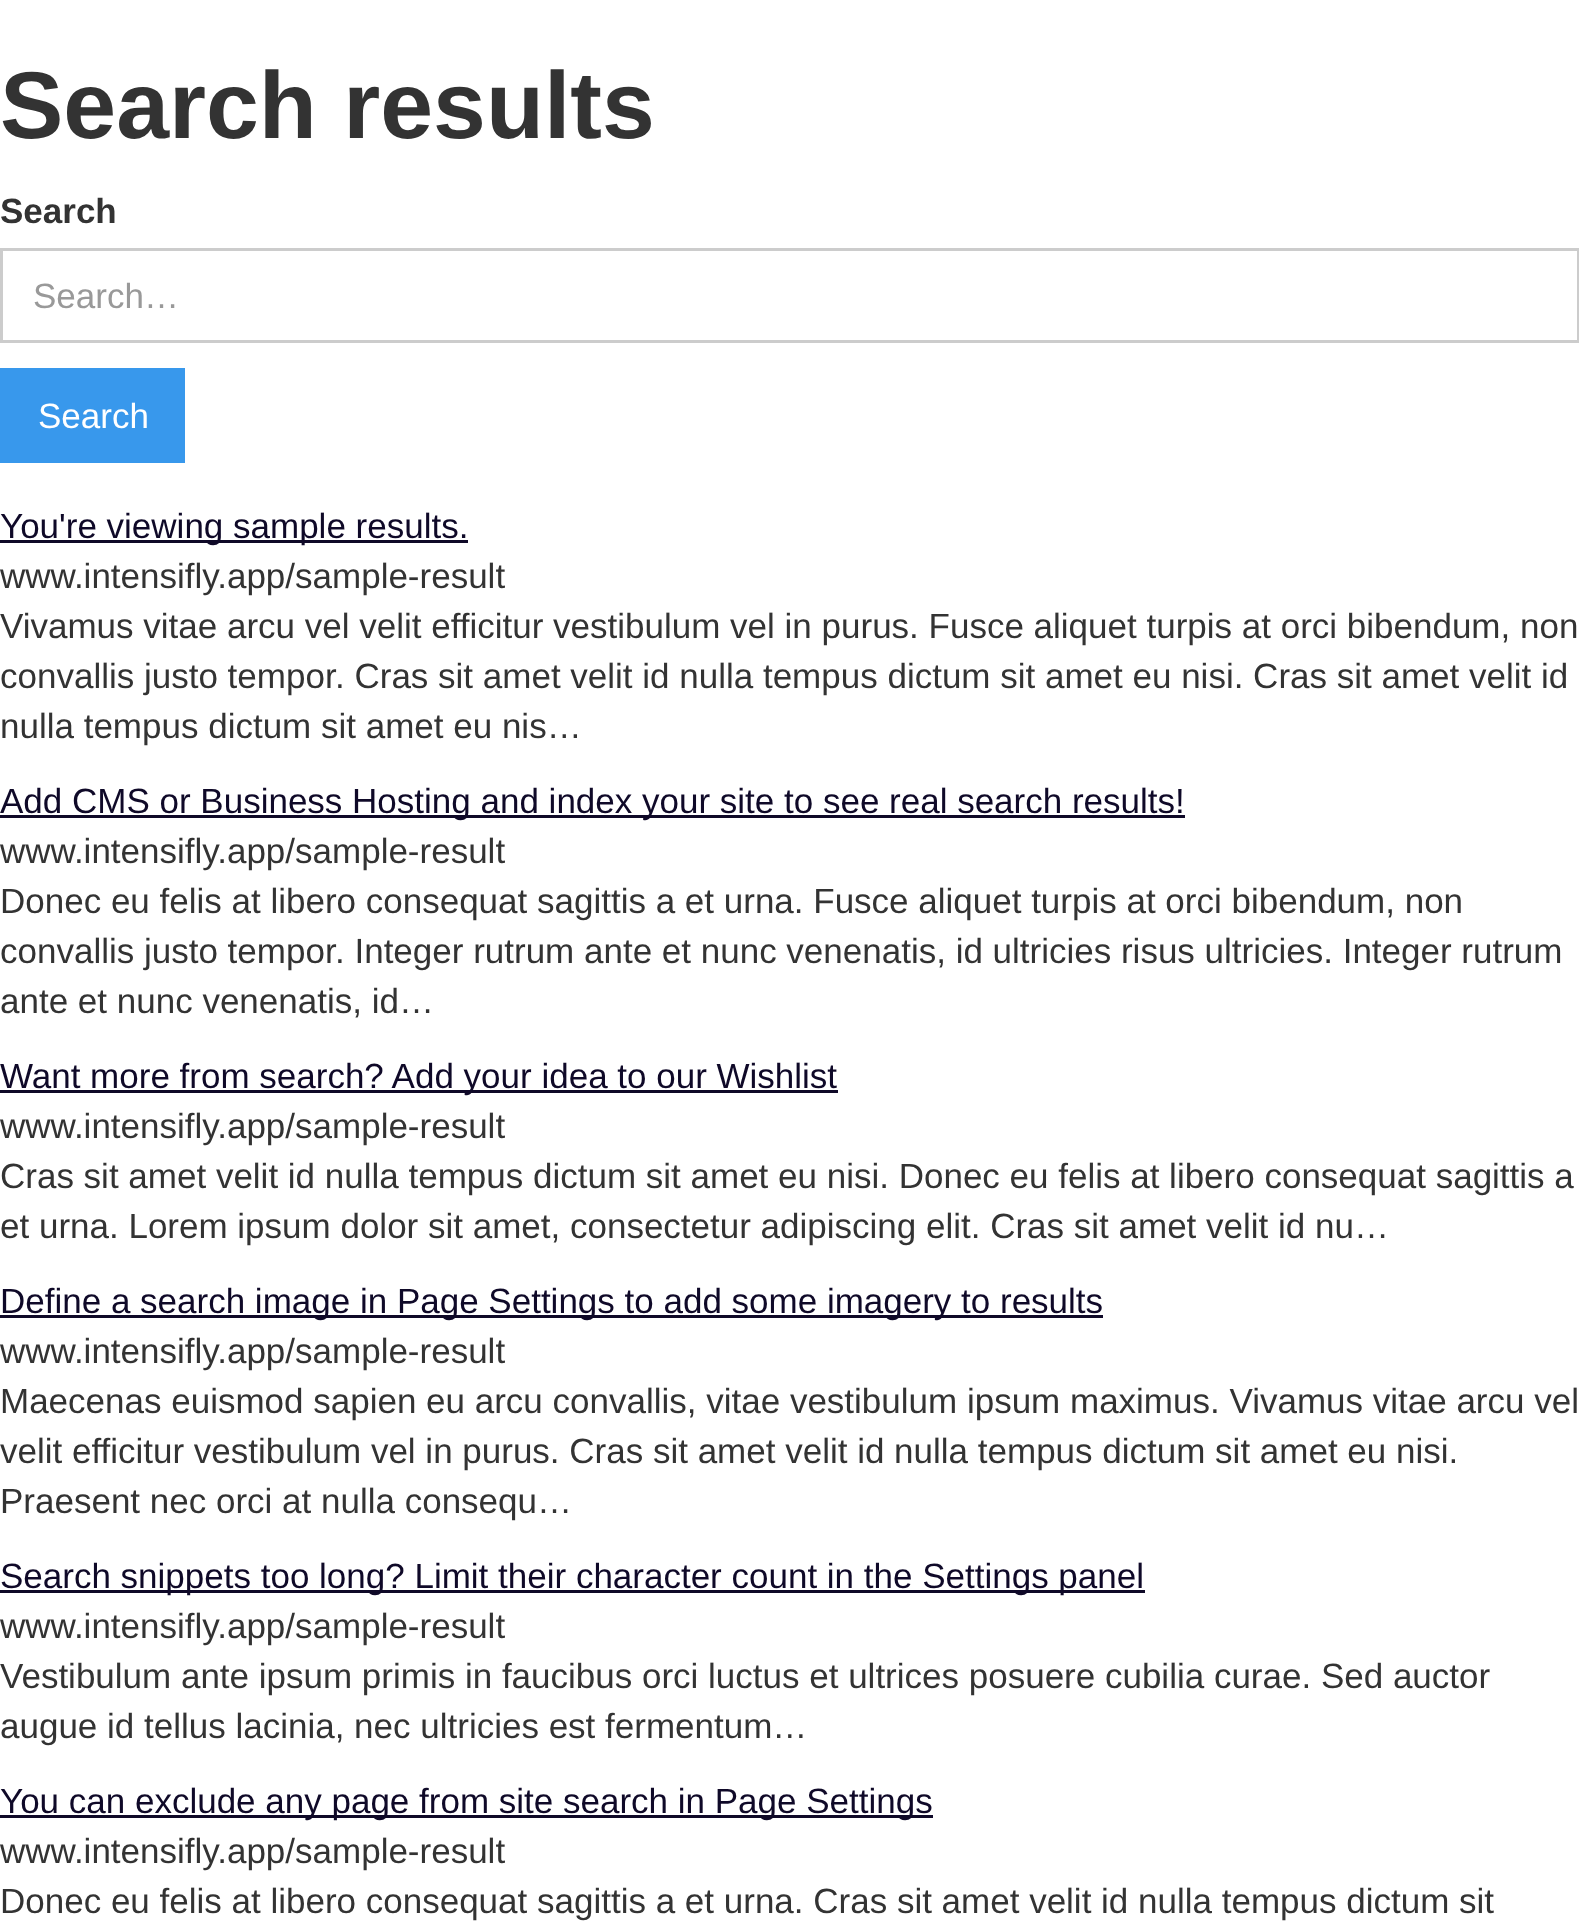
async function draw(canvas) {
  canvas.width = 1579;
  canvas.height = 1931;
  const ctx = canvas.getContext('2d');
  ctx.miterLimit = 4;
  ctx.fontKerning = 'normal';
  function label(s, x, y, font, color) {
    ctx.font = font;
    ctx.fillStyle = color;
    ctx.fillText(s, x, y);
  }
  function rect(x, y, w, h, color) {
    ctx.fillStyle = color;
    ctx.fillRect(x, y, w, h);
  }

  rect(0, 0, 1579, 1931, '#fff');
  label('Search results', 0, 138, 'bold 95px Liberation Sans', '#333');
  label('Search', 0, 223, 'bold 35px Liberation Sans', '#333');
  ctx.strokeStyle = '#ccc';
  ctx.lineWidth = 3;
  ctx.strokeRect(1.5, 249.5, 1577, 92);
  label('Search…', 33, 308, '35px Liberation Sans', '#999');
  rect(0, 368, 185, 95, '#3898ec');
  label('Search', 38, 428, '35px Liberation Sans', '#fff');
  rect(0, 540, 468, 3, '#0f0928');
  label('You\'re viewing sample results.', 0, 538, '35px Liberation Sans', '#0f0928');
  label('www.intensifly.app/sample-result', 0, 588, '35px Liberation Sans', '#333');
  label('Vivamus vitae arcu vel velit efficitur vestibulum vel in purus. Fusce aliquet turpis at orci bibendum, non', 0, 638, '35px Liberation Sans', '#333');
  label('convallis justo tempor', 0, 688, '35px Liberation Sans', '#333');
  label('. Cras sit amet velit id nulla tempus dictum sit amet eu nisi. Cras sit amet velit id', 335, 688, '35px Liberation Sans', '#333');
  label('nulla tempus dictum sit amet eu nis…', 0, 738, '35px Liberation Sans', '#333');
  rect(0, 815, 1185, 3, '#0f0928');
  label('Add CMS or Business Hosting and index your site to see real search results!', 0, 813, '35px Liberation Sans', '#0f0928');
  label('www.intensifly.app/sample-result', 0, 863, '35px Liberation Sans', '#333');
  label('Donec eu felis at libero consequat sagittis a et urna. Fusce aliquet turpis at orci bibendum, non', 0, 913, '35px Liberation Sans', '#333');
  label('convallis justo tempor', 0, 963, '35px Liberation Sans', '#333');
  label('. Integer rutrum ante et nunc venenatis, id ultricies risus ultricies. Integer rutrum', 335, 963, '35px Liberation Sans', '#333');
  label('ante et nunc venenatis, id…', 0, 1013, '35px Liberation Sans', '#333');
  rect(0, 1090, 838, 3, '#0f0928');
  label('Want more from search? Add your idea to our Wishlist', 0, 1088, '35px Liberation Sans', '#0f0928');
  label('www.intensifly.app/sample-result', 0, 1138, '35px Liberation Sans', '#333');
  label('Cras sit amet velit id nulla tempus dictum sit amet eu nisi. Donec eu felis at libero consequat sagittis a', 0, 1188, '35px Liberation Sans', '#333');
  label('et urna. Lorem ipsum dolor sit amet, consectetur adipiscing elit. Cras sit amet velit id nu…', 0, 1238, '35px Liberation Sans', '#333');
  rect(0, 1315, 1103, 3, '#0f0928');
  label('Define a search image in Page Settings to add some imagery to results', 0, 1313, '35px Liberation Sans', '#0f0928');
  label('www.intensifly.app/sample-result', 0, 1363, '35px Liberation Sans', '#333');
  label('Maecenas euismod sapien eu arcu convallis, vitae vestibulum ipsum maximus. Vivamus vitae arcu vel', 0, 1413, '35px Liberation Sans', '#333');
  label('velit efficitur vestibulum vel in purus. Cras sit amet velit id nulla tempus dictum sit amet eu nisi.', 0, 1463, '35px Liberation Sans', '#333');
  label('Praesent nec orci at nulla consequ…', 0, 1513, '35px Liberation Sans', '#333');
  rect(0, 1590, 1145, 3, '#0f0928');
  label('Search snippets too long? Limit their character count in the Settings panel', 0, 1588, '35px Liberation Sans', '#0f0928');
  label('www.intensifly.app/sample-result', 0, 1638, '35px Liberation Sans', '#333');
  label('Vestibulum ante ipsum primis in faucibus orci luctus et ultrices posuere cubilia curae. Sed auctor', 0, 1688, '35px Liberation Sans', '#333');
  label('augue id tellus lacinia, nec ultricies est fermentum…', 0, 1738, '35px Liberation Sans', '#333');
  rect(0, 1815, 933, 3, '#0f0928');
  label('You can exclude any page from site search in Page Settings', 0, 1813, '35px Liberation Sans', '#0f0928');
  label('www.intensifly.app/sample-result', 0, 1863, '35px Liberation Sans', '#333');
  label('Donec eu felis at libero consequat sagittis a et urna. Cras sit amet velit id nulla tempus dictum sit', 0, 1913, '35px Liberation Sans', '#333');
}

draw(document.querySelector('canvas'));
